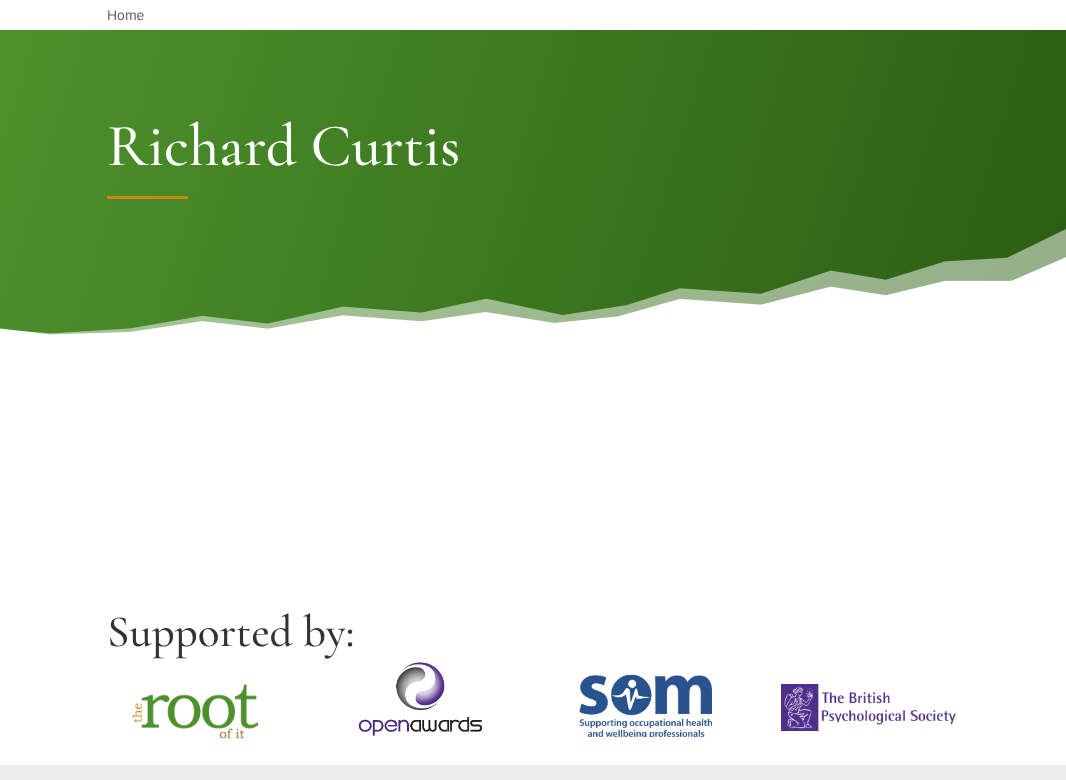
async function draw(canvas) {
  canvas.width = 1066;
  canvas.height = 780;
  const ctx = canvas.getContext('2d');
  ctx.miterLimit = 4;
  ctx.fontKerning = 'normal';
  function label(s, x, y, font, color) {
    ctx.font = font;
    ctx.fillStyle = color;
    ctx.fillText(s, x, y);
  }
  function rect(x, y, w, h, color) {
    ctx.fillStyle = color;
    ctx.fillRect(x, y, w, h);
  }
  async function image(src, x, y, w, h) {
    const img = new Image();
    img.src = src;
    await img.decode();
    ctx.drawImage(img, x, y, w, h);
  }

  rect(0, 0, 1066, 780, '#fff');
  label('Home', 107, 20, '14px Liberation Sans', '#666');
  await image('assets/img1.png', 0, 30, 1066, 305);
  label('Richard Curtis', 107, 165, '500 60px Cormorant Garamond', '#fff');
  rect(107, 196, 81, 3, '#c78910');
  await image('assets/img2.png', 0, 229, 1066, 110);
  label('Supported by:', 107, 646, '500 45px Cormorant Garamond', '#333');
  await image('assets/img3.png', 132, 684, 126, 55);
  await image('assets/img4.png', 358, 662, 124, 74);
  await image('assets/img5.png', 579, 675, 133, 62);
  await image('assets/img6.png', 781, 684, 175, 47);
  rect(0, 765, 1066, 15, '#ededed');
}

draw(document.querySelector('canvas'));
